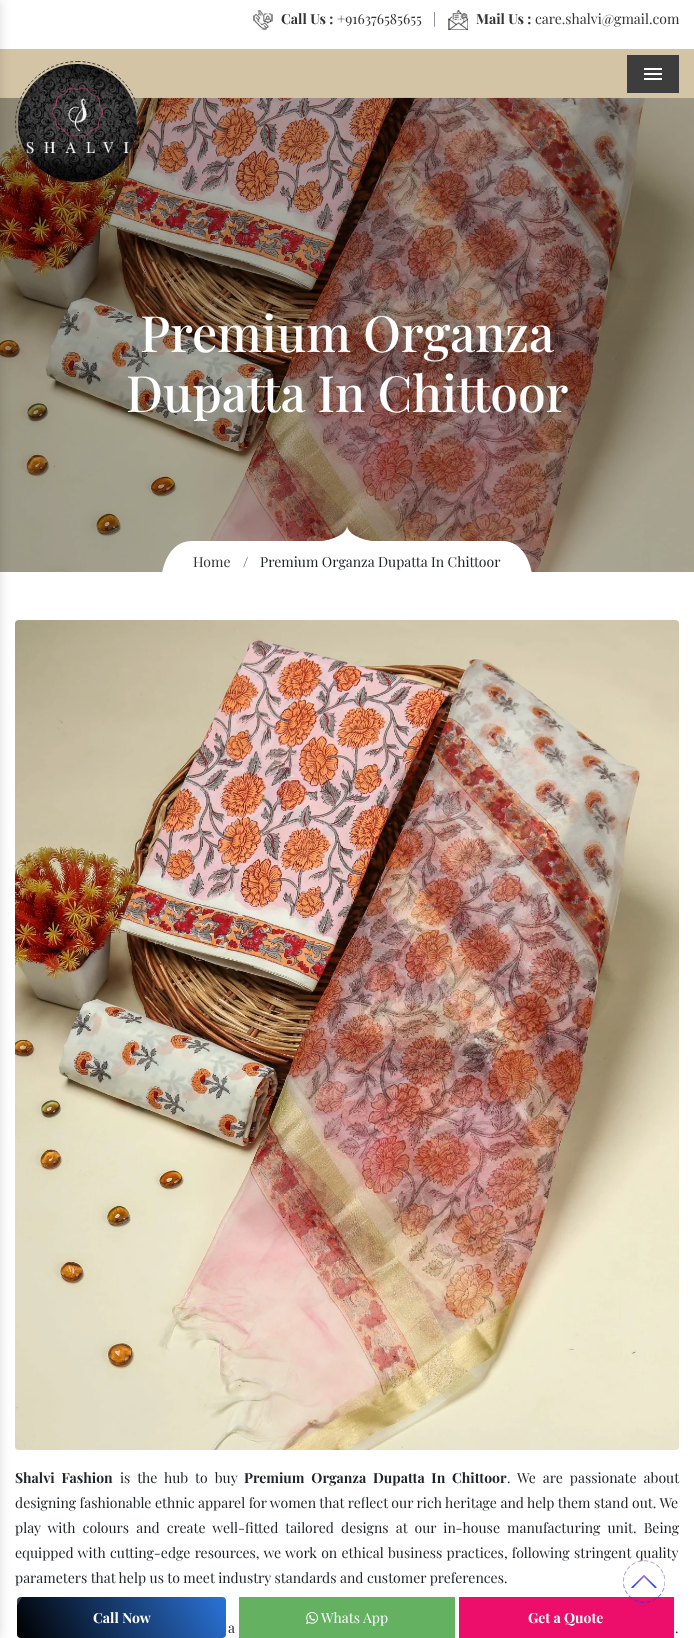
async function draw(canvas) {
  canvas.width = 694;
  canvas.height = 1638;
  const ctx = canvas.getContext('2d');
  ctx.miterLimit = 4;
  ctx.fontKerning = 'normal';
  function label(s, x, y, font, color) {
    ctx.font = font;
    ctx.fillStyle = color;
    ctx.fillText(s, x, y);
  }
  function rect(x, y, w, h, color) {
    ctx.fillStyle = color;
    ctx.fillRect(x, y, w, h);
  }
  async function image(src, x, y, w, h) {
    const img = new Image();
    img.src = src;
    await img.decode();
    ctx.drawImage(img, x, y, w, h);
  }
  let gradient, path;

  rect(0, 0, 694, 1638, '#fff');
  rect(0, 49, 694, 49, '#d3c4a5');
  await image('assets/img5.png', 0, 97, 694, 475);
  path = new Path2D('M77.5 61.5C111.5 61.5 139.5 89 139.5 123C139.5 157 111.5 184.5 77.5 184.5C43.5 184.5 15.5 157 15.5 123C15.5 89 43.5 61.5 77.5 61.5Z');
  ctx.strokeStyle = '#3d3d3d';
  ctx.setLineDash([3, 2]);
  ctx.stroke(path);
  await image('assets/img3.png', 18, 64, 119, 118);
  await image('assets/img6.png', 15, 620, 664, 830);
  gradient = ctx.createLinearGradient(34, 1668, 209, 1567);
  gradient.addColorStop(0, '#000');
  gradient.addColorStop(1, '#2b73d8');
  ctx.fillStyle = gradient;
  ctx.beginPath();
  ctx.roundRect(17, 1597, 209, 41, 4);
  ctx.fill();
  ctx.fillStyle = '#ffffff33';
  path = new Path2D('M2 1597H22L-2 1638H-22Z');
  ctx.fill(path);
  ctx.fillStyle = '#00000024';
  ctx.filter = 'blur(6px)';
  ctx.beginPath();
  ctx.rect(-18, 0, 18, 1638);
  ctx.fill();
  ctx.filter = 'none';
  await image('assets/img1.png', 253, 10, 20, 20);
  label('Call Us :', 281, 24, 'bold 14px Playfair Display', '#333');
  label('+916376585655', 337, 24, '14px Playfair Display', '#333');
  label('|', 433, 24, '14px Playfair Display', '#343a40');
  await image('assets/img2.png', 448, 10, 20, 20);
  label('Mail Us :', 476, 24, 'bold 14px Playfair Display', '#333');
  label('care.shalvi@gmail.com', 535, 24, '14px Playfair Display', '#333');
  rect(627, 55, 52, 38, '#3d3d3d');
  await image('assets/img4.png', 644, 68, 18, 12);
  label('Premium Organza', 140, 352, '500 50px Playfair Display', '#fff');
  label('Dupatta In Chittoor', 126, 412, '500 50px Playfair Display', '#fff');
  ctx.save();
  ctx.beginPath();
  ctx.rect(162, 526, 370, 46);
  ctx.clip();
  path = new Path2D('M532 574C532 574 528 541 502 541H372C372 541 349 538 347 526V574ZM162 574C162 574 166 541 192 541H322C322 541 346 538 347 526V574Z');
  ctx.fill(path);
  ctx.restore();
  label('Home', 193, 567, '14px Playfair Display', '#333');
  label('/', 243, 567, '14px Playfair Display', '#212529');
  label('Premium Organza Dupatta In Chittoor', 260, 567, '14px Playfair Display', '#212529');
  ctx.wordSpacing = '3.5px';
  label('Shalvi Fashion', 15, 1483, 'bold 14px Playfair Display', '#212529');
  label('is the hub to buy', 120, 1483, '14px Playfair Display', '#212529');
  label('Premium Organza Dupatta In Chittoor', 244, 1483, 'bold 14px Playfair Display', '#212529');
  label('. We are passionate about', 507, 1483, '14px Playfair Display', '#212529');
  ctx.wordSpacing = '0px';
  label('designing fashionable ethnic apparel for women that reflect our rich heritage and help them stand out. We', 15, 1508, '14px Playfair Display', '#212529');
  ctx.wordSpacing = '3.6px';
  label('play with colours and create well-fitted tailored designs at our in-house manufacturing unit. Being', 15, 1533, '14px Playfair Display', '#212529');
  ctx.wordSpacing = '0.8px';
  label('equipped with cutting-edge resources, we work on ethical business practices, following stringent quality', 15, 1558, '14px Playfair Display', '#212529');
  ctx.wordSpacing = '0px';
  label('parameters that help us to meet industry standards and customer preferences.', 15, 1583, '14px Playfair Display', '#212529');
  ctx.wordSpacing = '1px';
  label('a', 228, 1633, '14px Playfair Display', '#212529');
  ctx.wordSpacing = '0px';
  label('.', 675, 1633, '14px Playfair Display', '#212529');
  rect(459, 1597, 215, 41, '#ec0e6a');
  await image('assets/img7.png', 623, 1560, 42, 47);
  label('Call Now', 93, 1623, 'bold 14px Playfair Display', '#fff');
  rect(239, 1597, 216, 41, '#64b161');
  await image('assets/img8.png', 306, 1612, 12, 12);
  label('Whats App', 321, 1623, '14px Playfair Display', '#fff');
  label('Get a Quote', 528, 1623, 'bold 14px Playfair Display', '#fff');
}

draw(document.querySelector('canvas'));
